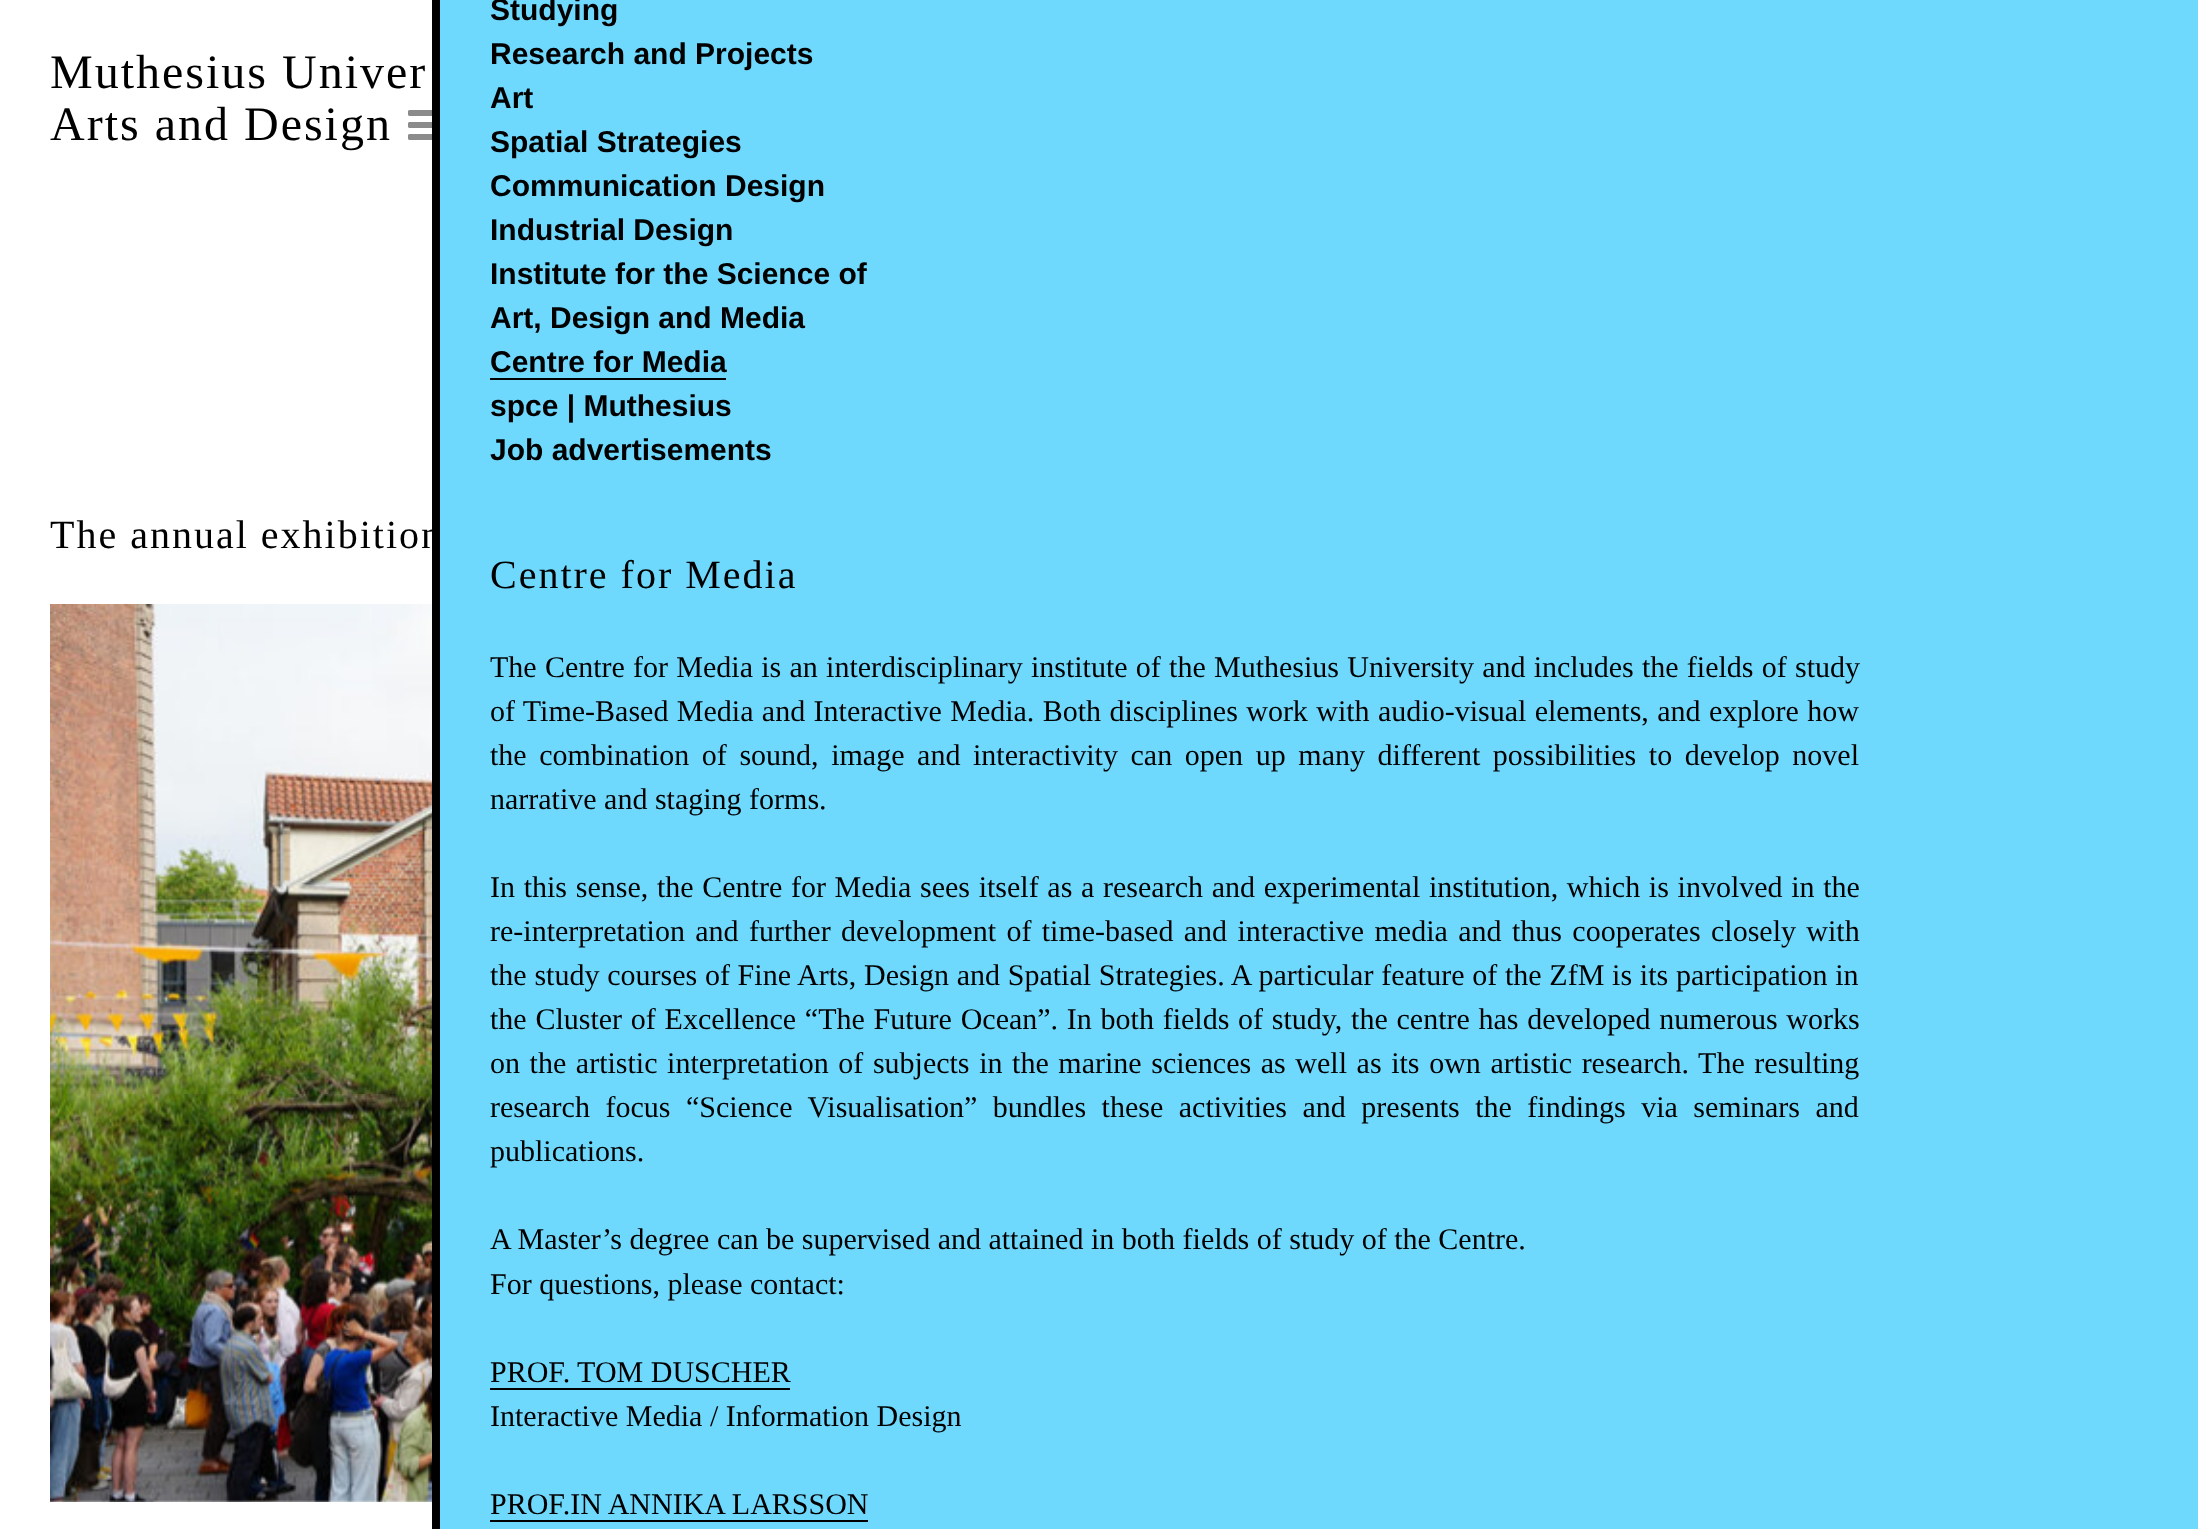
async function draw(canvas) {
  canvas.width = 2198;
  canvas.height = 1529;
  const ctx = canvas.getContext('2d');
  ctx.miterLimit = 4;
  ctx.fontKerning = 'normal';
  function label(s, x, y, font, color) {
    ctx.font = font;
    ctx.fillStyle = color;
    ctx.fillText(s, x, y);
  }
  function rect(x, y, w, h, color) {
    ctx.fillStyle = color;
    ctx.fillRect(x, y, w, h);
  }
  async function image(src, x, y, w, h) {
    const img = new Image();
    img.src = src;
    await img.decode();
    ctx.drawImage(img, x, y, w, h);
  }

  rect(0, 0, 2198, 1529, '#fff');
  ctx.letterSpacing = '2px';
  label('Muthesius Univer', 50, 88, '48px Liberation Serif', '#000');
  label('Arts and Design', 50, 140, '48px Liberation Serif', '#000');
  await image('assets/img1.png', 408, 110, 24, 30);
  label('The annual exhibition', 50, 548, '40px Liberation Serif', '#000');
  await image('assets/img2.png', 50, 604, 382, 898);
  rect(432, 0, 8, 1529, '#000');
  rect(440, 0, 1758, 1529, '#6fd8fd');
  ctx.letterSpacing = '0px';
  label('Studying', 490, 20, 'bold 30px Liberation Sans', '#000');
  label('Research and Projects', 490, 64, 'bold 30px Liberation Sans', '#000');
  label('Art', 490, 108, 'bold 30px Liberation Sans', '#000');
  label('Spatial Strategies', 490, 152, 'bold 30px Liberation Sans', '#000');
  label('Communication Design', 490, 196, 'bold 30px Liberation Sans', '#000');
  label('Industrial Design', 490, 240, 'bold 30px Liberation Sans', '#000');
  label('Institute for the Science of', 490, 284, 'bold 30px Liberation Sans', '#000');
  label('Art, Design and Media', 490, 328, 'bold 30px Liberation Sans', '#000');
  label('Centre for Media', 490, 372, 'bold 30px Liberation Sans', '#000');
  rect(490, 378, 236, 2, '#000');
  label('spce | Muthesius', 490, 416, 'bold 30px Liberation Sans', '#000');
  label('Job advertisements', 490, 460, 'bold 30px Liberation Sans', '#000');
  ctx.letterSpacing = '2px';
  label('Centre for Media', 490, 588, '40px Liberation Serif', '#000');
  ctx.letterSpacing = '0px';
  ctx.wordSpacing = '0.75px';
  label('The Centre for Media is an interdisciplinary institute of the Muthesius University and includes the fields of study', 490, 677, '30px Liberation Serif', '#000');
  ctx.wordSpacing = '0.9px';
  label('of Time-Based Media and Interactive Media. Both disciplines work with audio-visual elements, and explore how', 490, 721, '30px Liberation Serif', '#000');
  ctx.wordSpacing = '5.1px';
  label('the combination of sound, image and interactivity can open up many different possibilities to develop novel', 490, 765, '30px Liberation Serif', '#000');
  ctx.wordSpacing = '0px';
  label('narrative and staging forms.', 490, 809, '30px Liberation Serif', '#000');
  ctx.wordSpacing = '1.2px';
  label('In this sense, the Centre for Media sees itself as a research and experimental institution, which is involved in the', 490, 897, '30px Liberation Serif', '#000');
  ctx.wordSpacing = '2.9px';
  label('re-interpretation and further development of time-based and interactive media and thus cooperates closely with', 490, 941, '30px Liberation Serif', '#000');
  ctx.wordSpacing = '0.25px';
  label('the study courses of Fine Arts, Design and Spatial Strategies. A particular feature of the ZfM is its participation in', 490, 985, '30px Liberation Serif', '#000');
  ctx.wordSpacing = '1.25px';
  label('the Cluster of Excellence “The Future Ocean”. In both fields of study, the centre has developed numerous works', 490, 1029, '30px Liberation Serif', '#000');
  ctx.wordSpacing = '2.1px';
  label('on the artistic interpretation of subjects in the marine sciences as well as its own artistic research. The resulting', 490, 1073, '30px Liberation Serif', '#000');
  ctx.wordSpacing = '8px';
  label('research focus “Science Visualisation” bundles these activities and presents the findings via seminars and', 490, 1117, '30px Liberation Serif', '#000');
  ctx.wordSpacing = '0px';
  label('publications.', 490, 1161, '30px Liberation Serif', '#000');
  label('A Master’s degree can be supervised and attained in both fields of study of the Centre.', 490, 1249, '30px Liberation Serif', '#000');
  label('For questions, please contact:', 490, 1294, '30px Liberation Serif', '#000');
  label('PROF. TOM DUSCHER', 490, 1382, '30px Liberation Serif', '#000');
  rect(490, 1388, 300, 2, '#000');
  label('Interactive Media / Information Design', 490, 1426, '30px Liberation Serif', '#000');
  label('PROF.IN ANNIKA LARSSON', 490, 1514, '30px Liberation Serif', '#000');
  rect(490, 1520, 378, 2, '#000');
}

draw(document.querySelector('canvas'));
